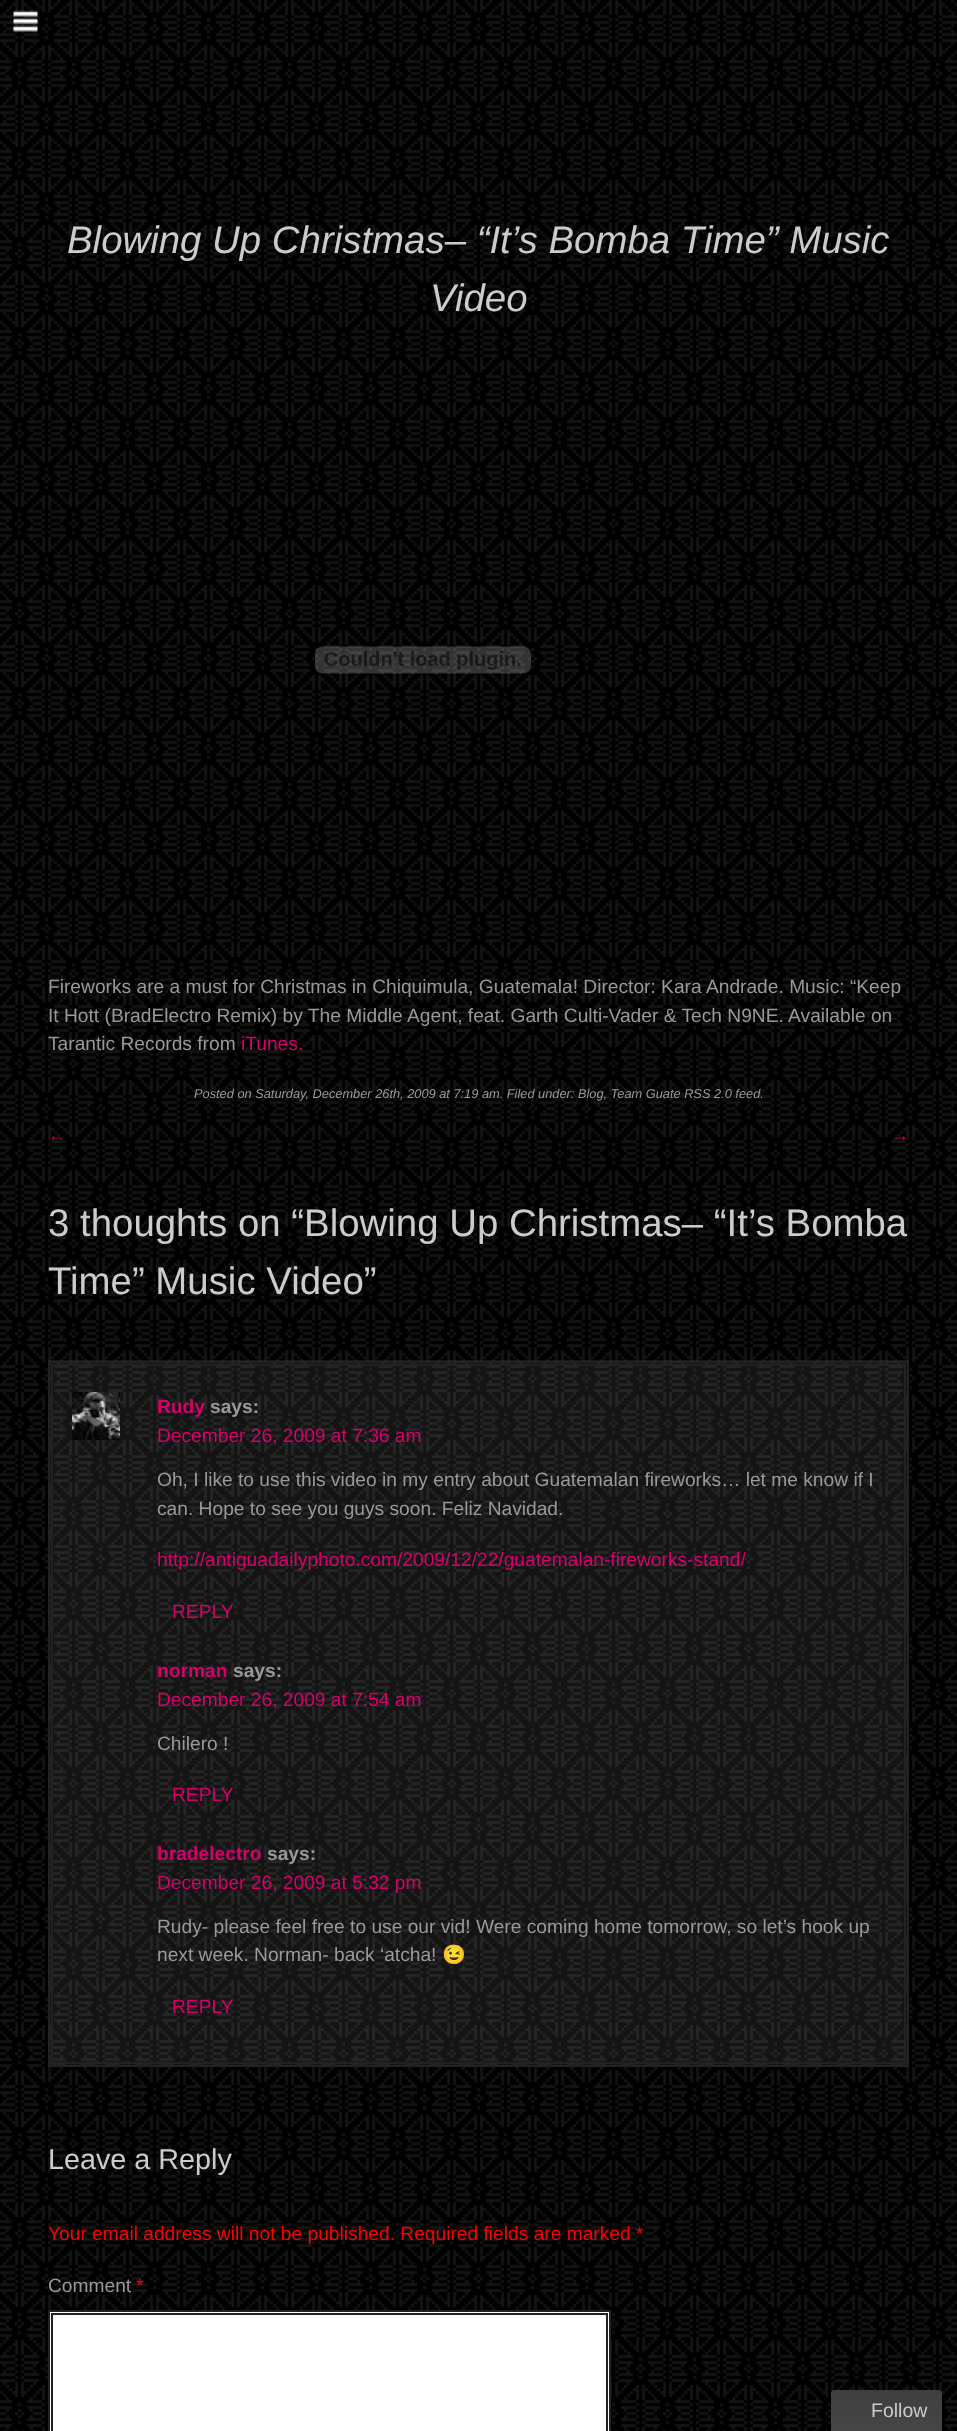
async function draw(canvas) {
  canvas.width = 957;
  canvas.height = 2431;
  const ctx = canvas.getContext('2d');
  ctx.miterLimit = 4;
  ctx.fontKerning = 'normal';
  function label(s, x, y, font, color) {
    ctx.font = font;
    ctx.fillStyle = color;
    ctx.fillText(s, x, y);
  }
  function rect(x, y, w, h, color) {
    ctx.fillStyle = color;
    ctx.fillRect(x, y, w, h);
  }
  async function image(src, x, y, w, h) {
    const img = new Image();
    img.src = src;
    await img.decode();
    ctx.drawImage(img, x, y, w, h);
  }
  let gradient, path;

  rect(0, 0, 957, 2431, '#fff');
  await image('assets/img1.png', 0, 0, 957, 2431);
  await image('assets/img2.png', 13, 10, 25, 22);
  label('Blowing Up Christmas– “It’s Bomba Time” Music', 67, 253, 'italic 38.4px Liberation Sans', '#ccc');
  label('Video', 430, 311, 'italic 38.4px Liberation Sans', '#ccc');
  await image('assets/img3.png', 315, 646, 216, 28);
  label('Fireworks are a must for Christmas in Chiquimula, Guatemala! Director: Kara Andrade. Music: “Keep', 48, 993, '19.2px Liberation Sans', '#999');
  label('It Hott (BradElectro Remix) by The Middle Agent, feat. Garth Culti-Vader & Tech N9NE. Available on', 48, 1022, '19.2px Liberation Sans', '#999');
  label('Tarantic Records from', 48, 1050, '19.2px Liberation Sans', '#999');
  label('iTunes.', 241, 1050, '19.2px Liberation Sans', '#d6006b');
  label('Posted on Saturday, December 26th, 2009 at 7:19 am. Filed under: Blog, Team Guate RSS 2.0 feed.', 194, 1098, 'italic 12.8px Liberation Sans', '#999');
  label('←', 48, 1141, '17px Liberation Sans', '#d6006b');
  label('→', 892, 1141, '17px Liberation Sans', '#d6006b');
  label('3 thoughts on “Blowing Up Christmas– “It’s Bomba', 48, 1236, '38.4px Liberation Sans', '#ccc');
  label('Time” Music Video”', 48, 1294, '38.4px Liberation Sans', '#ccc');
  rect(48, 1360, 861, 705, '#ffffff14');
  ctx.strokeStyle = '#222';
  ctx.lineWidth = 2;
  ctx.strokeRect(49, 1362, 859, 704);
  ctx.strokeRect(52, 1365, 853, 698);
  await image('assets/img4.png', 72, 1392, 48, 48);
  label('Rudy', 157, 1413, 'bold 19.2px Liberation Sans', '#d6006b');
  label('says:', 210, 1413, 'bold 19.2px Liberation Sans', '#999');
  label('December 26, 2009 at 7:36 am', 157, 1442, '19.2px Liberation Sans', '#d6006b');
  label('Oh, I like to use this video in my entry about Guatemalan fireworks… let me know if I', 157, 1486, '19.2px Liberation Sans', '#999');
  label('can. Hope to see you guys soon. Feliz Navidad.', 157, 1515, '19.2px Liberation Sans', '#999');
  label('http://antiguadailyphoto.com/2009/12/22/guatemalan-fireworks-stand/', 157, 1566, '19.2px Liberation Sans', '#d6006b');
  label('REPLY', 172, 1618, '19.2px Liberation Sans', '#d6006b');
  label('norman', 157, 1677, 'bold 19.2px Liberation Sans', '#d6006b');
  label('says:', 233, 1677, 'bold 19.2px Liberation Sans', '#999');
  label('December 26, 2009 at 7:54 am', 157, 1706, '19.2px Liberation Sans', '#d6006b');
  label('Chilero !', 157, 1750, '19.2px Liberation Sans', '#999');
  label('REPLY', 172, 1801, '19.2px Liberation Sans', '#d6006b');
  label('bradelectro', 157, 1860, 'bold 19.2px Liberation Sans', '#d6006b');
  label('says:', 267, 1860, 'bold 19.2px Liberation Sans', '#999');
  label('December 26, 2009 at 5:32 pm', 157, 1889, '19.2px Liberation Sans', '#d6006b');
  label('Rudy- please feel free to use our vid! Were coming home tomorrow, so let’s hook up', 157, 1933, '19.2px Liberation Sans', '#999');
  label('next week. Norman- back ‘atcha!', 157, 1961, '19.2px Liberation Sans', '#999');
  label('😉', 442, 1961, '19.2px Noto Color Emoji', '#999');
  label('REPLY', 172, 2013, '19.2px Liberation Sans', '#d6006b');
  label('Leave a Reply', 48, 2169, '28.75px Liberation Sans', '#ccc');
  label('Your email address will not be published. Required fields are marked *', 48, 2240, '19.2px Liberation Sans', '#f00');
  label('Comment', 48, 2292, '19.2px Liberation Sans', '#999');
  label('*', 136, 2292, '19.2px Liberation Sans', '#f00');
  ctx.fillStyle = '#fff';
  ctx.beginPath();
  ctx.rect(49, 2311, 561, 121);
  ctx.fill();
  ctx.stroke();
  ctx.strokeRect(52, 2314, 555, 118);
  gradient = ctx.createLinearGradient(831, 2390, 831, 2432);
  gradient.addColorStop(0, '#3f3f3f');
  gradient.addColorStop(1, '#464646');
  ctx.fillStyle = gradient;
  path = new Path2D('M834 2390H939C940.5 2390 942 2391.5 942 2393V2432H831V2393C831 2391.5 832.5 2390 834 2390Z');
  ctx.fill(path);
  label('Follow', 871, 2417, '19.5px Liberation Sans', '#ccc');
}

draw(document.querySelector('canvas'));
